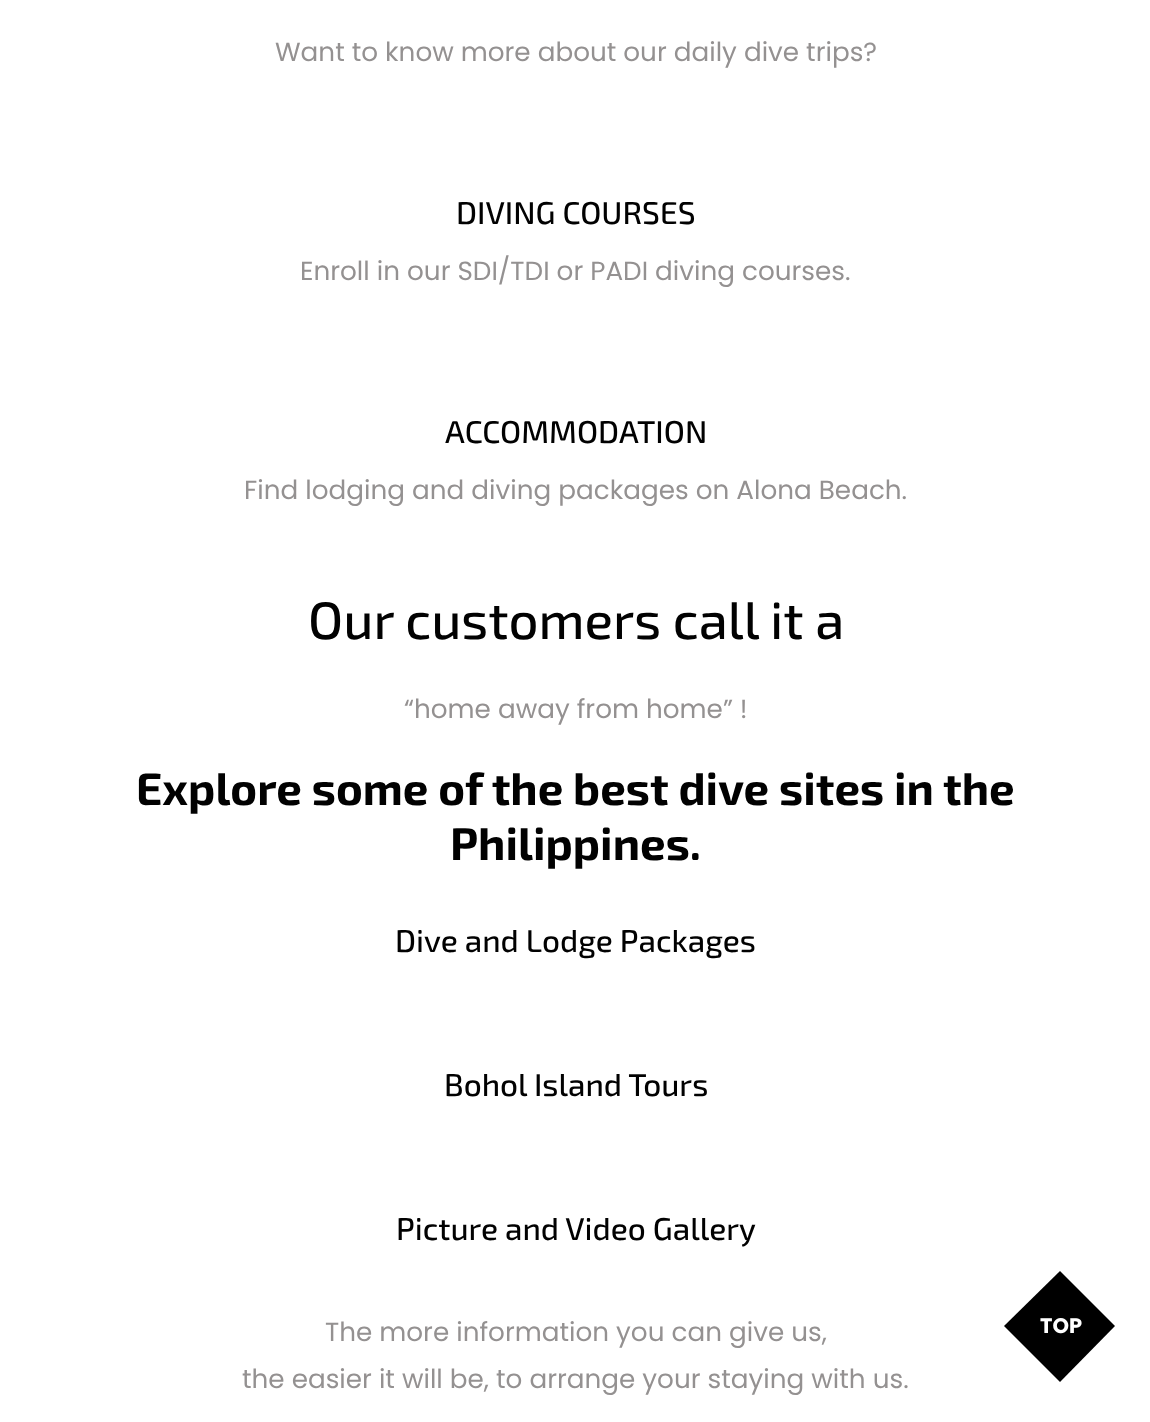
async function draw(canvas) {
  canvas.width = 1150;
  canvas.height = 1422;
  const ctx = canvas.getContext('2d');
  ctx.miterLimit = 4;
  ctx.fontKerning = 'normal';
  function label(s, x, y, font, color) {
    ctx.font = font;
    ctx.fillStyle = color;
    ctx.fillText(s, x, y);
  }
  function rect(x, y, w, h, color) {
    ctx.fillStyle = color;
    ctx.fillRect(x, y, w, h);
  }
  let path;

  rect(0, 0, 1150, 1422, '#fff');
  label('Want to know more about our daily dive trips?', 275, 61, '26.25px Poppins', '#949191');
  label('DIVING COURSES', 456, 224, '500 31.5px "Exo 2"', '#010101');
  label('Enroll in our SDI/TDI or PADI diving courses.', 300, 280, '26.25px Poppins', '#949191');
  label('ACCOMMODATION', 445, 443, '500 31.5px "Exo 2"', '#010101');
  label('Find lodging and diving packages on Alona Beach.', 244, 499, '26.25px Poppins', '#949191');
  label('Our customers call it a', 308, 639, '500 52.5px "Exo 2"', '#010101');
  label('“home away from home” !', 404, 718, '26.25px Poppins', '#949191');
  label('Explore some of the best dive sites in the', 136, 805, 'bold 45.5px "Exo 2"', '#010101');
  label('Philippines.', 450, 860, 'bold 45.5px "Exo 2"', '#010101');
  label('Dive and Lodge Packages', 395, 952, '500 31.5px "Exo 2"', '#010101');
  label('Bohol Island Tours', 444, 1096, '500 31.5px "Exo 2"', '#010101');
  label('Picture and Video Gallery', 396, 1240, '500 31.5px "Exo 2"', '#010101');
  label('The more information you can give us,', 325, 1341, '26.25px Poppins', '#949191');
  label('the easier it will be, to arrange your staying with us.', 242, 1388, '26.25px Poppins', '#949191');
  ctx.fillStyle = '#000';
  path = new Path2D('M1004 1326L1060 1271L1115 1326L1060 1382Z');
  ctx.fill(path);
  label('TOP', 1040, 1333, 'bold 21px Poppins', '#fff');
}

draw(document.querySelector('canvas'));
